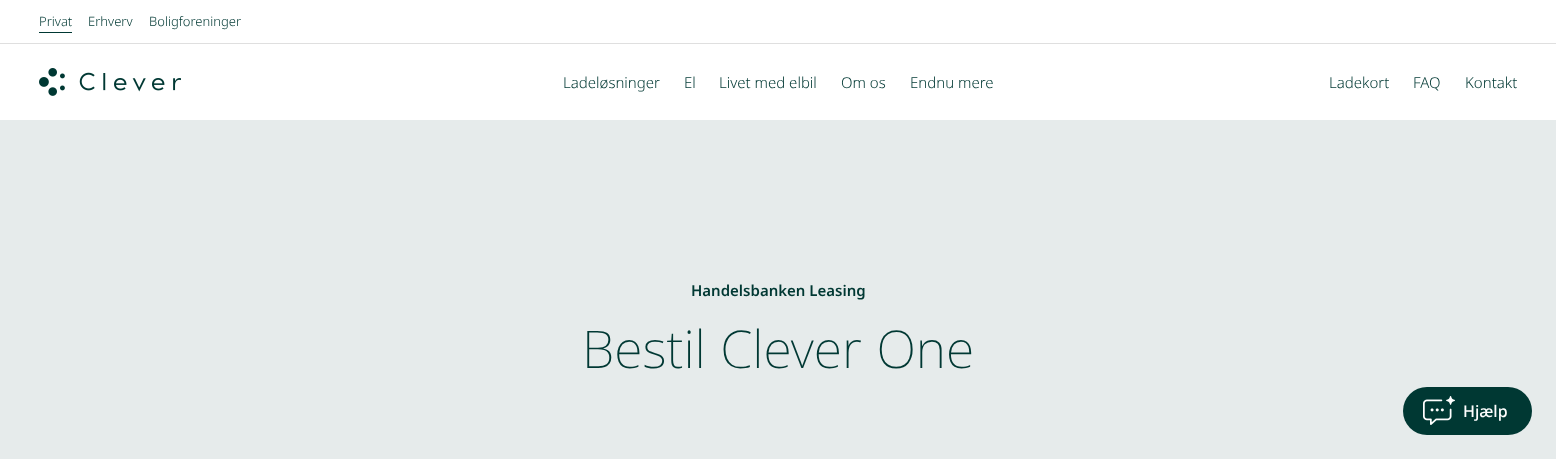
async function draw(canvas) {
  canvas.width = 1556;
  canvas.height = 459;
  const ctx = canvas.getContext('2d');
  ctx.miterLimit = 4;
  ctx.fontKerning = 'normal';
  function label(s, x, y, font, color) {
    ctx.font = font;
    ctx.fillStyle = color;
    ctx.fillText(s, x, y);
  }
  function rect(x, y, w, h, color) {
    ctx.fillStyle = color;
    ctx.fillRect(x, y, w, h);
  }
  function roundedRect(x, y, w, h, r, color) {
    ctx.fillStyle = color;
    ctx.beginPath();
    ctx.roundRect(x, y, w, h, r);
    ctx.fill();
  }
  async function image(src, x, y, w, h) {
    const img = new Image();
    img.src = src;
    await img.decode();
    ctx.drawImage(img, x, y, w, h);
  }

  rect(0, 0, 1556, 459, '#e6ebeb');
  rect(0, 0, 1556, 120, '#fff');
  rect(0, 43, 1556, 1, '#dfdfdf');
  label('Privat', 39, 26, '300 13px Noto Sans', '#003833');
  rect(39, 32, 33, 1, '#003833');
  label('Erhverv', 88, 26, '300 13px Noto Sans', '#003833');
  label('Boligforeninger', 149, 26, '300 13px Noto Sans', '#003833');
  await image('assets/img1.png', 39, 68, 142, 28);
  label('Ladeløsninger', 563, 88, '300 15px Noto Sans', '#003833');
  label('El', 684, 88, '300 15px Noto Sans', '#003833');
  label('Livet med elbil', 719, 88, '300 15px Noto Sans', '#003833');
  label('Om os', 841, 88, '300 15px Noto Sans', '#003833');
  label('Endnu mere', 910, 88, '300 15px Noto Sans', '#003833');
  label('Ladekort', 1329, 88, '300 15px Noto Sans', '#003833');
  label('FAQ', 1413, 88, '300 15px Noto Sans', '#003833');
  label('Kontakt', 1465, 88, '300 15px Noto Sans', '#003833');
  label('Handelsbanken Leasing', 691, 296, '600 15px Noto Sans', '#003833');
  ctx.wordSpacing = '1px';
  label('Bestil Clever One', 582, 368, '200 52px Noto Sans', '#003833');
  roundedRect(1403, 387, 129, 48, 24, '#003833');
  await image('assets/img2.png', 1423, 396, 32, 29);
  ctx.wordSpacing = '0px';
  label('Hjælp', 1463, 417, '500 16px Noto Sans', '#fff');
}

draw(document.querySelector('canvas'));
